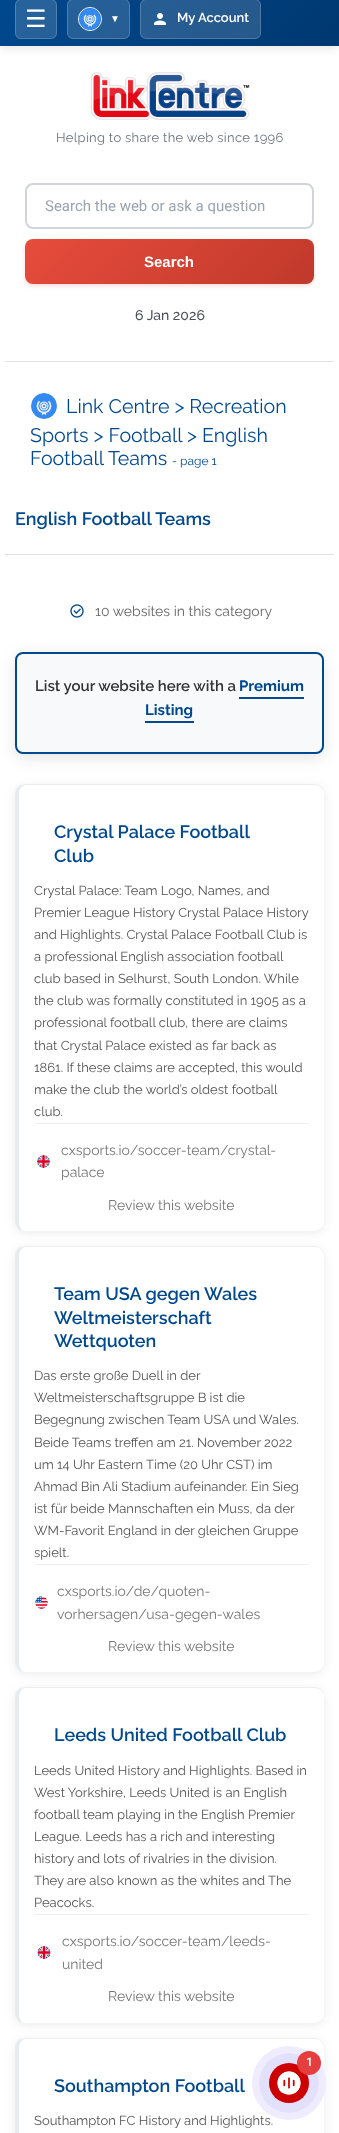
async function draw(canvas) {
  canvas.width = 339;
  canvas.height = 2133;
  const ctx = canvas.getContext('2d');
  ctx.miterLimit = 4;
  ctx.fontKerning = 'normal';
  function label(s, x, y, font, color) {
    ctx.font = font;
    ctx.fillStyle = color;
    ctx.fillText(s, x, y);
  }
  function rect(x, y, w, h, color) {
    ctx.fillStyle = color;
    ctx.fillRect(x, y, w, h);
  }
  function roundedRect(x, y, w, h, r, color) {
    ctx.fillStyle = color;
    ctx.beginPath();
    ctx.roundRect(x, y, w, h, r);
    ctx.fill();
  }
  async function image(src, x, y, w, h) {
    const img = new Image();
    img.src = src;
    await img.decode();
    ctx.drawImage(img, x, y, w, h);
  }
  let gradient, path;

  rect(0, 0, 339, 2133, '#fff');
  ctx.fillStyle = '#0000001a';
  ctx.filter = 'blur(5px)';
  ctx.beginPath();
  ctx.rect(0, -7, 339, 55);
  ctx.fill();
  ctx.filter = 'none';
  gradient = ctx.createLinearGradient(71, -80, 268, 117);
  gradient.addColorStop(0, '#00498f');
  gradient.addColorStop(1, '#003870');
  ctx.fillStyle = gradient;
  ctx.fillRect(0, 0, 339, 46);
  roundedRect(15, -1, 42, 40, 6, '#ffffff26');
  ctx.beginPath();
  ctx.roundRect(15.5, -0.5, 41, 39, 5.5);
  ctx.strokeStyle = '#ffffff33';
  ctx.stroke();
  label('☰', 25, 27, '24px DejaVu Sans', '#fff');
  roundedRect(67, -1, 63, 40, 6, '#ffffff26');
  ctx.beginPath();
  ctx.roundRect(67.5, -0.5, 62, 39, 5.5);
  ctx.stroke();
  ctx.beginPath();
  ctx.arc(90, 19, 11.5, 0, 2 * Math.PI);
  ctx.strokeStyle = '#fff';
  ctx.stroke();
  await image('assets/img1.png', 79, 8, 22, 22);
  label('▼', 110, 22, '10px Liberation Sans', '#fff');
  roundedRect(140, -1, 121, 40, 6, '#ffffff26');
  ctx.beginPath();
  ctx.roundRect(140.5, -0.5, 120, 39, 5.5);
  ctx.strokeStyle = '#ffffff33';
  ctx.stroke();
  await image('assets/img2.png', 154, 13, 12, 12);
  label('My Account', 177, 22, '600 13px Raleway', '#fff');
  rect(5, 361, 329, 1, '#e1e4e8');
  await image('assets/img3.png', 90, 72, 160, 48);
  ctx.letterSpacing = '0.3px';
  label('Helping to share the web since 1996', 56, 142, '13px Raleway', '#6c757d');
  ctx.beginPath();
  ctx.roundRect(26, 184, 287, 44, 7);
  ctx.strokeStyle = '#d1d5db';
  ctx.lineWidth = 2;
  ctx.stroke();
  ctx.letterSpacing = '0px';
  label('Search the web or ask a question', 45, 211, '15px Roboto', '#9ca3af');
  ctx.fillStyle = '#e74c3c33';
  ctx.filter = 'blur(2px)';
  ctx.beginPath();
  ctx.roundRect(25, 241, 289, 45, 8);
  ctx.fill();
  ctx.filter = 'none';
  gradient = ctx.createLinearGradient(86, 178, 253, 345);
  gradient.addColorStop(0, '#e74c3c');
  gradient.addColorStop(1, '#c0392b');
  ctx.fillStyle = gradient;
  ctx.beginPath();
  ctx.roundRect(25, 239, 289, 45, 8);
  ctx.fill();
  label('Search', 144, 267, 'bold 15px Liberation Sans', '#fff');
  label('6 Jan 2026', 135, 320, '500 14px Raleway', '#495057');
  await image('assets/img4.png', 31, 393, 26, 26);
  label('Link Centre > Recreation', 66, 413, '19.6px Raleway', '#00498f');
  label('Sports > Football', 30, 442, '19.6px Raleway', '#00498f');
  label('> English', 187, 442, '19.6px Raleway', '#00498f');
  label('Football Teams', 30, 465, '19.6px Raleway', '#00498f');
  label('- page 1', 172, 465, '12px Raleway', '#00498f');
  rect(5, 554, 329, 1, '#dee2e6');
  label('English Football Teams', 15, 525, '600 18px Raleway', '#00498f');
  await image('assets/img5.png', 70, 604, 14, 14);
  label('10 websites in this category', 95, 616, '14px Raleway', '#666');
  ctx.fillStyle = '#0000001a';
  ctx.filter = 'blur(7.5px)';
  ctx.beginPath();
  ctx.roundRect(15, 656, 309, 102, 8);
  ctx.fill();
  ctx.filter = 'none';
  ctx.fillStyle = '#f8f9fa';
  ctx.beginPath();
  ctx.roundRect(16, 653, 307, 100, 7);
  ctx.fill();
  ctx.strokeStyle = '#00498f';
  ctx.stroke();
  label('List your website here with a', 35, 691, '600 15px Raleway', '#333');
  label('Premium', 239, 691, 'bold 15px Raleway', '#00498f');
  rect(239, 697, 65, 2, '#00498f');
  label('Listing', 145, 715, 'bold 15px Raleway', '#00498f');
  rect(145, 721, 49, 2, '#00498f');
  ctx.fillStyle = '#00000014';
  ctx.filter = 'blur(5px)';
  ctx.beginPath();
  ctx.roundRect(15, 786, 309, 447, 10);
  ctx.fill();
  ctx.filter = 'none';
  roundedRect(15, 784, 309, 447, 10, '#fff');
  ctx.fillStyle = '#eee';
  path = new Path2D('M25 784L20 785L23 786L25 785H314C320 785 324 789 324 794C324 788 320 784 314 784Z');
  ctx.fill(path);
  ctx.fillStyle = '#e9ecef';
  path = new Path2D('M15 794V1221C15 1227 19 1231 25 1231C22 1231 19 1227 19 1221V794C19 790 21 787 23 786L20 785C17 787 15 790 15 794Z');
  ctx.fill(path);
  label('Crystal Palace Football', 54, 838, '600 18px Raleway', '#00498f');
  label('Club', 54, 862, '600 18px Raleway', '#00498f');
  label('Crystal Palace: Team Logo, Names, and', 34, 895, '13px Raleway', '#555');
  label('Premier League History Crystal Palace History', 34, 917, '13px Raleway', '#555');
  label('and Highlights. Crystal Palace Football Club is', 34, 939, '13px Raleway', '#555');
  label('a professional English association football', 34, 961, '13px Raleway', '#555');
  label('club based in Selhurst, South London. While', 34, 983, '13px Raleway', '#555');
  label('the club was formally constituted in 1905 as a', 34, 1005, '13px Raleway', '#555');
  label('professional football club, there are claims', 34, 1027, '13px Raleway', '#555');
  label('that Crystal Palace existed as far back as', 34, 1050, '13px Raleway', '#555');
  label('1861. If these claims are accepted, this would', 34, 1072, '13px Raleway', '#555');
  label('make the club the world’s oldest football', 34, 1094, '13px Raleway', '#555');
  label('club.', 34, 1116, '13px Raleway', '#555');
  rect(34, 1123, 275, 1, '#f0f0f0');
  await image('assets/img6.png', 37, 1155, 13, 13);
  label('cxsports.io/soccer-team/crystal-', 61, 1155, '14px Raleway', '#777');
  label('palace', 61, 1177, '14px Raleway', '#777');
  label('Review this website', 108, 1210, '14px Raleway', '#777');
  ctx.fillStyle = '#00000014';
  ctx.filter = 'blur(5px)';
  ctx.beginPath();
  ctx.roundRect(15, 1248, 309, 426, 10);
  ctx.fill();
  ctx.filter = 'none';
  roundedRect(15, 1246, 309, 426, 10, '#fff');
  ctx.fillStyle = '#eee';
  path = new Path2D('M25 1246L20 1247L23 1248L25 1247H314C320 1247 324 1251 324 1256C324 1250 320 1246 314 1246Z');
  ctx.fill(path);
  ctx.fillStyle = '#e9ecef';
  path = new Path2D('M15 1256V1662C15 1668 19 1672 25 1672C22 1672 19 1668 19 1662V1256C19 1252 21 1249 23 1248L20 1247C17 1249 15 1252 15 1256Z');
  ctx.fill(path);
  label('Team USA gegen Wales', 54, 1300, '600 18px Raleway', '#00498f');
  label('Weltmeisterschaft', 54, 1324, '600 18px Raleway', '#00498f');
  label('Wettquoten', 54, 1347, '600 18px Raleway', '#00498f');
  label('Das erste große Duell in der', 34, 1380, '13px Raleway', '#555');
  label('Weltmeisterschaftsgruppe B ist die', 34, 1402, '13px Raleway', '#555');
  label('Begegnung zwischen Team USA und Wales.', 34, 1424, '13px Raleway', '#555');
  label('Beide Teams treffen am 21. November 2022', 34, 1447, '13px Raleway', '#555');
  label('um 14 Uhr Eastern Time (20 Uhr CST) im', 34, 1469, '13px Raleway', '#555');
  label('Ahmad Bin Ali Stadium aufeinander. Ein Sieg', 34, 1491, '13px Raleway', '#555');
  label('ist für beide Mannschaften ein Muss, da der', 34, 1513, '13px Raleway', '#555');
  label('WM-Favorit England in der gleichen Gruppe', 34, 1535, '13px Raleway', '#555');
  label('spielt.', 34, 1557, '13px Raleway', '#555');
  rect(34, 1564, 275, 1, '#f0f0f0');
  await image('assets/img7.png', 35, 1596, 13, 13);
  label('cxsports.io/de/quoten-', 57, 1596, '14px Raleway', '#777');
  label('vorhersagen/usa-gegen-wales', 57, 1619, '14px Raleway', '#777');
  label('Review this website', 108, 1651, '14px Raleway', '#777');
  ctx.fillStyle = '#00000014';
  ctx.filter = 'blur(5px)';
  ctx.beginPath();
  ctx.roundRect(15, 1689, 309, 336, 10);
  ctx.fill();
  ctx.filter = 'none';
  roundedRect(15, 1687, 309, 336, 10, '#fff');
  ctx.fillStyle = '#eee';
  path = new Path2D('M25 1687L20 1688L23 1689L25 1688H314C320 1688 324 1692 324 1697C324 1691 320 1687 314 1687Z');
  ctx.fill(path);
  ctx.fillStyle = '#e9ecef';
  path = new Path2D('M15 1697V2013C15 2019 19 2023 25 2023C22 2023 19 2019 19 2013V1697C19 1693 21 1690 23 1689L20 1688C17 1690 15 1693 15 1697Z');
  ctx.fill(path);
  label('Leeds United Football Club', 54, 1741, '600 18px Raleway', '#00498f');
  label('Leeds United History and Highlights. Based in', 34, 1775, '13px Raleway', '#555');
  label('West Yorkshire, Leeds United is an English', 34, 1797, '13px Raleway', '#555');
  label('football team playing in the English Premier', 34, 1819, '13px Raleway', '#555');
  label('League. Leeds has a rich and interesting', 34, 1841, '13px Raleway', '#555');
  label('history and lots of rivalries in the division.', 34, 1863, '13px Raleway', '#555');
  label('They are also known as the whites and The', 34, 1885, '13px Raleway', '#555');
  label('Peacocks.', 34, 1907, '13px Raleway', '#555');
  rect(34, 1914, 275, 1, '#f0f0f0');
  await image('assets/img8.png', 37, 1946, 14, 13);
  label('cxsports.io/soccer-team/leeds-', 62, 1946, '14px Raleway', '#777');
  label('united', 62, 1969, '14px Raleway', '#777');
  label('Review this website', 108, 2001, '14px Raleway', '#777');
  ctx.fillStyle = '#00000014';
  ctx.filter = 'blur(5px)';
  ctx.beginPath();
  ctx.roundRect(15, 2040, 309, 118, 10);
  ctx.fill();
  ctx.filter = 'none';
  roundedRect(15, 2038, 309, 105, 10, '#fff');
  ctx.fillStyle = '#eee';
  path = new Path2D('M25 2038L20 2039L23 2040L25 2039H314C320 2039 324 2043 324 2048C324 2042 320 2038 314 2038Z');
  ctx.fill(path);
  ctx.fillStyle = '#e9ecef';
  path = new Path2D('M15 2048V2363C15 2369 19 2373 25 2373C22 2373 19 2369 19 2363V2048C19 2044 21 2041 23 2040L20 2039C17 2041 15 2044 15 2048Z');
  ctx.fill(path);
  label('Southampton Football', 54, 2092, '600 18px Raleway', '#00498f');
  label('Southampton FC History and Highlights.', 34, 2125, '13px Raleway', '#555');
  ctx.beginPath();
  ctx.arc(289, 2083, 33.5, 0, 2 * Math.PI);
  ctx.strokeStyle = '#eeecfe';
  ctx.lineWidth = 7;
  ctx.stroke();
  ctx.fillStyle = '#e2e0fb';
  ctx.beginPath();
  ctx.arc(289, 2083, 30, 0, 2 * Math.PI);
  ctx.fill();
  ctx.fillStyle = '#c00';
  ctx.beginPath();
  ctx.arc(289, 2083, 20, 0, 2 * Math.PI);
  ctx.fill();
  await image('assets/img9.png', 277, 2071, 24, 24);
  ctx.fillStyle = '#e53e3e';
  ctx.beginPath();
  ctx.arc(309, 2063, 12, 0, 2 * Math.PI);
  ctx.fill();
  label('1', 306, 2066, '600 12px Roboto', '#fff');
}

draw(document.querySelector('canvas'));
